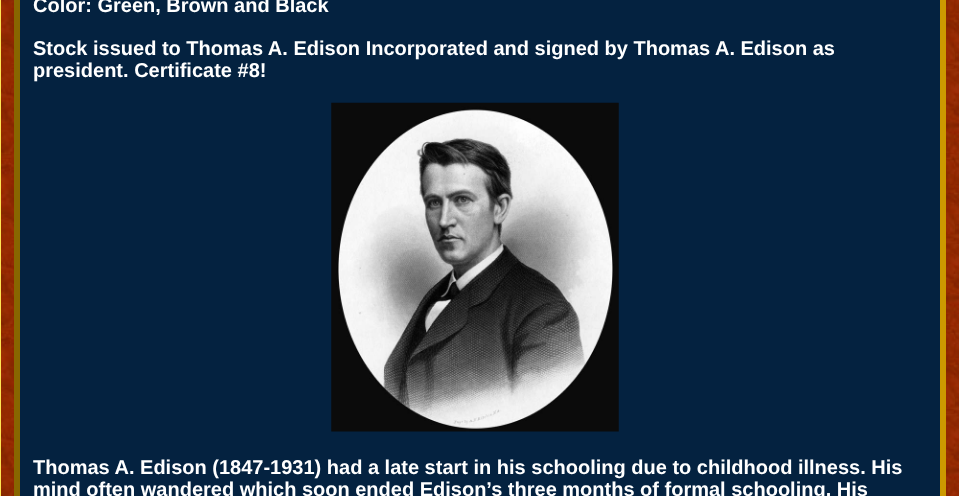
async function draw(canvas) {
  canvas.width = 959;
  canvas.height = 496;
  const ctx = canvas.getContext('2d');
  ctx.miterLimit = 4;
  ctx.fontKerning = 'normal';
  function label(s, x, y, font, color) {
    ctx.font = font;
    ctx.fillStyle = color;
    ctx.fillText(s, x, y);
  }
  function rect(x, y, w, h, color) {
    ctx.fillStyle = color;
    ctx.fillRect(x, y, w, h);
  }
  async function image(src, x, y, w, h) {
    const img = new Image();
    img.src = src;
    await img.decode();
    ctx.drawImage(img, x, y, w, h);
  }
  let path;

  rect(0, 0, 959, 496, '#fff');
  await image('assets/img1.png', 1, 0, 958, 496);
  ctx.strokeStyle = '#ffe451';
  ctx.strokeRect(0.5, -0.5, 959, 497);
  rect(20, 0, 920, 496, '#042240');
  ctx.fillStyle = '#c90';
  path = new Path2D('M946-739V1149L940 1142V-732Z');
  ctx.fill(path);
  ctx.fillStyle = '#860';
  path = new Path2D('M14 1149V-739L20-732V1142Z');
  ctx.fill(path);
  label('Color: Green, Brown and Black', 33, 12, 'bold 20px Liberation Sans', '#fff');
  label('Stock issued to Thomas A. Edison Incorporated and signed by Thomas A. Edison as', 33, 55, 'bold 20px Liberation Sans', '#fff');
  label('president. Certificate #8!', 33, 77, 'bold 20px Liberation Sans', '#fff');
  await image('assets/img2.png', 331, 102, 288, 330);
  label('Thomas A. Edison (1847-1931) had a late start in his schooling due to childhood illness. His', 33, 474, 'bold 20px Liberation Sans', '#fff');
  label('mind often wandered which soon ended Edison’s three months of formal schooling. His', 33, 496, 'bold 20px Liberation Sans', '#fff');
}

draw(document.querySelector('canvas'));
